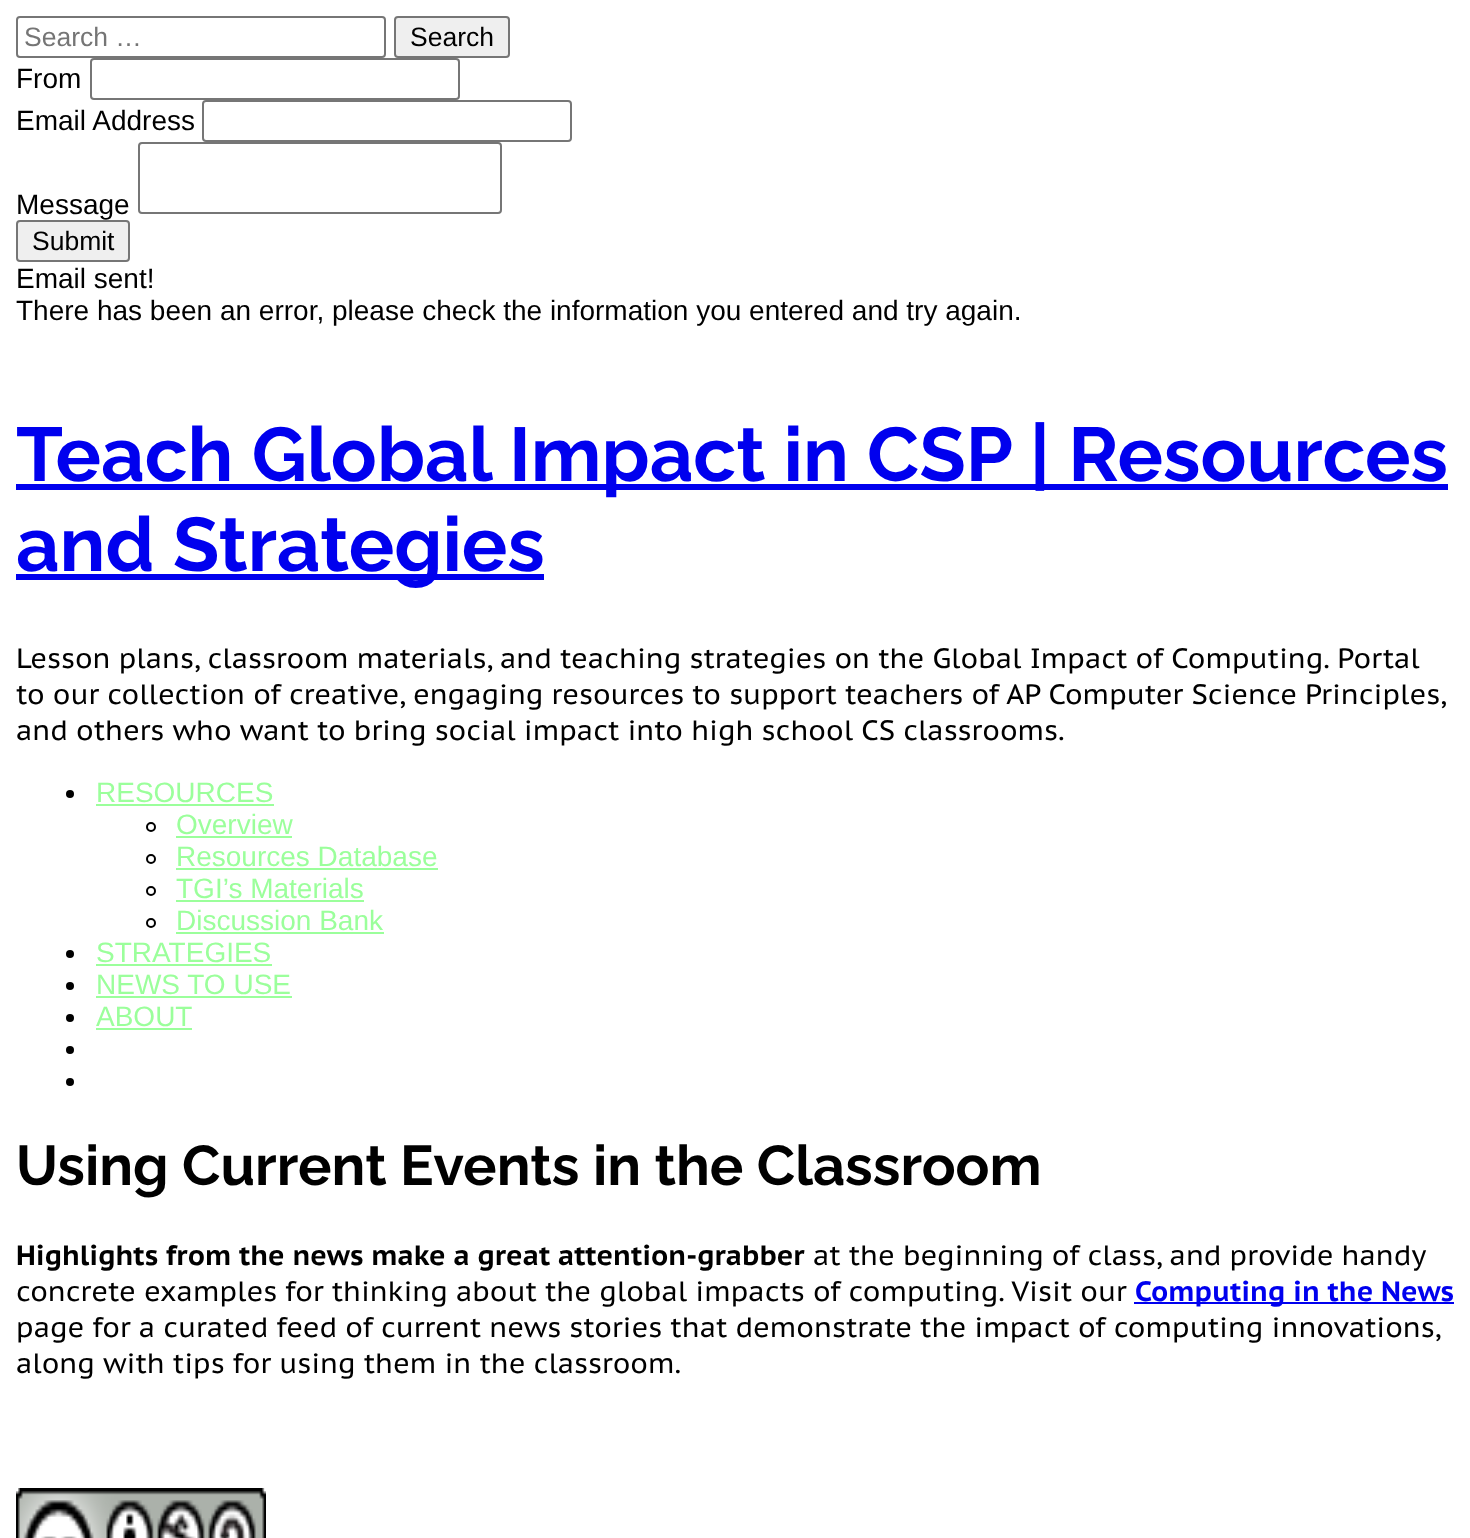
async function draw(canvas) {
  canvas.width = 1470;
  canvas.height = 1538;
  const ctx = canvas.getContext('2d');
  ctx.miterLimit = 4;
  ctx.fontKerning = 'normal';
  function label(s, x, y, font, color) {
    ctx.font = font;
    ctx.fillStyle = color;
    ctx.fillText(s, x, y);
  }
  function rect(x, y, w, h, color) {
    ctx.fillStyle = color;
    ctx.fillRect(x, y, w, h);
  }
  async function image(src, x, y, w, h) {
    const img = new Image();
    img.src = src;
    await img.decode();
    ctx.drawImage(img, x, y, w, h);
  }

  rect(0, 0, 1470, 1538, '#fff');
  ctx.beginPath();
  ctx.roundRect(17, 17, 368, 40, 3);
  ctx.strokeStyle = '#767676';
  ctx.lineWidth = 2;
  ctx.stroke();
  label('Search …', 24, 46, '26.5px Liberation Sans', '#757575');
  ctx.fillStyle = '#efefef';
  ctx.beginPath();
  ctx.roundRect(395, 17, 114, 40, 3);
  ctx.fill();
  ctx.stroke();
  label('Search', 410, 46, '26.5px Liberation Sans', '#000');
  label('From', 16, 88, '28px Liberation Sans', '#000');
  ctx.beginPath();
  ctx.roundRect(91, 59, 368, 40, 3);
  ctx.stroke();
  label('Email Address', 16, 130, '28px Liberation Sans', '#000');
  ctx.beginPath();
  ctx.roundRect(203, 101, 368, 40, 3);
  ctx.stroke();
  label('Message', 16, 214, '28px Liberation Sans', '#000');
  ctx.beginPath();
  ctx.roundRect(139, 143, 362, 70, 3);
  ctx.stroke();
  ctx.fillStyle = '#efefef';
  ctx.beginPath();
  ctx.roundRect(17, 221, 112, 40, 3);
  ctx.fill();
  ctx.stroke();
  label('Submit', 32, 250, '26.5px Liberation Sans', '#000');
  label('Email sent!', 16, 288, '28px Liberation Sans', '#000');
  label('There has been an error, please check the information you entered and try again.', 16, 320, '28px Liberation Sans', '#000');
  rect(16, 484, 1432, 6, '#00e');
  label('Teach Global Impact in CSP | Resources', 16, 481, 'bold 76px Raleway', '#00e');
  rect(16, 574, 528, 6, '#00e');
  label('and Strategies', 16, 571, 'bold 76px Raleway', '#00e');
  label('Lesson plans, classroom materials, and teaching strategies on the Global Impact of Computing. Portal', 16, 668, '28px PT Sans Caption', '#000');
  label('to our collection of creative, engaging resources to support teachers of AP Computer Science Principles,', 16, 704, '28px PT Sans Caption', '#000');
  label('and others who want to bring social impact into high school CS classrooms.', 16, 740, '28px PT Sans Caption', '#000');
  ctx.beginPath();
  ctx.arc(70, 794, 4, 0, 2 * Math.PI);
  ctx.fill();
  label('RESOURCES', 96, 802, '28px Liberation Sans', '#9bff9b');
  rect(96, 804, 178, 2, '#9bff9b');
  ctx.beginPath();
  ctx.arc(151, 827, 4, 0, 2 * Math.PI);
  ctx.strokeStyle = '#000';
  ctx.stroke();
  label('Overview', 176, 834, '28px Liberation Sans', '#9bff9b');
  rect(176, 836, 116, 2, '#9bff9b');
  ctx.beginPath();
  ctx.arc(151, 859, 4, 0, 2 * Math.PI);
  ctx.stroke();
  label('Resources Database', 176, 866, '28px Liberation Sans', '#9bff9b');
  rect(176, 868, 262, 2, '#9bff9b');
  ctx.beginPath();
  ctx.arc(151, 891, 4, 0, 2 * Math.PI);
  ctx.stroke();
  label('TGI’s Materials', 176, 898, '28px Liberation Sans', '#9bff9b');
  rect(176, 900, 188, 2, '#9bff9b');
  ctx.beginPath();
  ctx.arc(151, 923, 4, 0, 2 * Math.PI);
  ctx.stroke();
  label('Discussion Bank', 176, 930, '28px Liberation Sans', '#9bff9b');
  rect(176, 932, 208, 2, '#9bff9b');
  ctx.fillStyle = '#000';
  ctx.beginPath();
  ctx.arc(70, 954, 4, 0, 2 * Math.PI);
  ctx.fill();
  label('STRATEGIES', 96, 962, '28px Liberation Sans', '#9bff9b');
  rect(96, 964, 176, 2, '#9bff9b');
  ctx.fillStyle = '#000';
  ctx.beginPath();
  ctx.arc(70, 986, 4, 0, 2 * Math.PI);
  ctx.fill();
  label('NEWS TO USE', 96, 994, '28px Liberation Sans', '#9bff9b');
  rect(96, 996, 196, 2, '#9bff9b');
  ctx.fillStyle = '#000';
  ctx.beginPath();
  ctx.arc(70, 1018, 4, 0, 2 * Math.PI);
  ctx.fill();
  label('ABOUT', 96, 1026, '28px Liberation Sans', '#9bff9b');
  rect(96, 1028, 96, 2, '#9bff9b');
  ctx.fillStyle = '#000';
  ctx.beginPath();
  ctx.arc(70, 1050, 4, 0, 2 * Math.PI);
  ctx.fill();
  ctx.beginPath();
  ctx.arc(70, 1082, 4, 0, 2 * Math.PI);
  ctx.fill();
  label('Using Current Events in the Classroom', 16, 1185, 'bold 56px Raleway', '#000');
  label('Highlights from the news make a great attention-grabber', 16, 1265, 'bold 28px PT Sans Caption', '#000');
  label('at the beginning of class, and provide handy', 813, 1265, '28px PT Sans Caption', '#000');
  label('concrete examples for thinking about the global impacts of computing. Visit our', 16, 1301, '28px PT Sans Caption', '#000');
  rect(1134, 1302, 320, 2, '#00e');
  label('Computing in the News', 1135, 1301, 'bold 28px PT Sans Caption', '#00e');
  label('page for a curated feed of current news stories that demonstrate the impact of computing innovations,', 16, 1337, '28px PT Sans Caption', '#000');
  label('along with tips for using them in the classroom.', 16, 1373, '28px PT Sans Caption', '#000');
  await image('assets/img1.png', 16, 1488, 250, 50);
}

draw(document.querySelector('canvas'));
